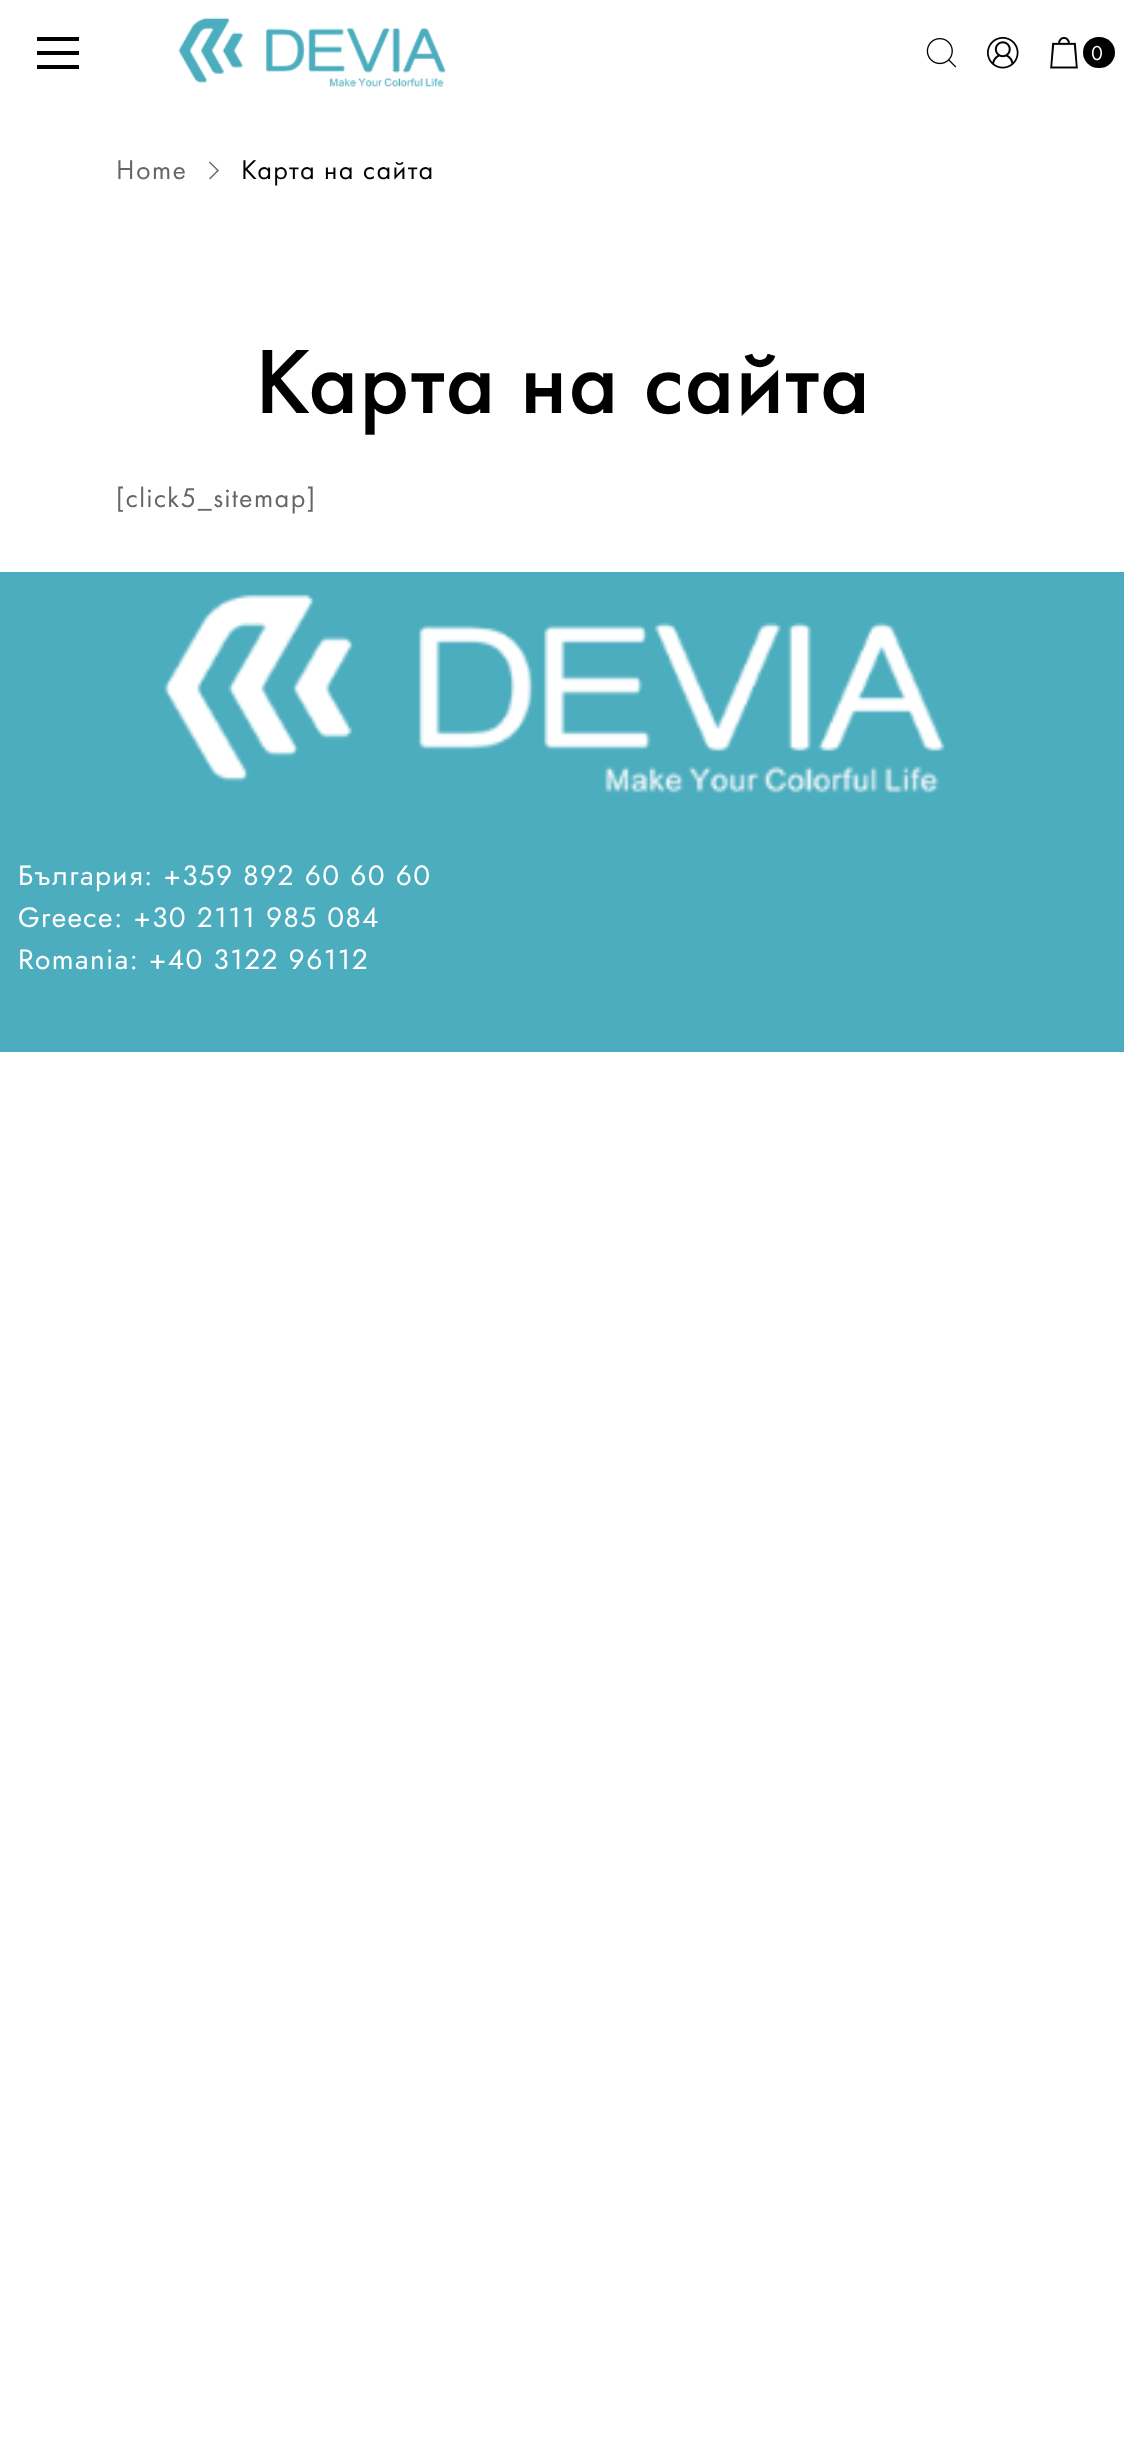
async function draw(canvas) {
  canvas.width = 1124;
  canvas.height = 2450;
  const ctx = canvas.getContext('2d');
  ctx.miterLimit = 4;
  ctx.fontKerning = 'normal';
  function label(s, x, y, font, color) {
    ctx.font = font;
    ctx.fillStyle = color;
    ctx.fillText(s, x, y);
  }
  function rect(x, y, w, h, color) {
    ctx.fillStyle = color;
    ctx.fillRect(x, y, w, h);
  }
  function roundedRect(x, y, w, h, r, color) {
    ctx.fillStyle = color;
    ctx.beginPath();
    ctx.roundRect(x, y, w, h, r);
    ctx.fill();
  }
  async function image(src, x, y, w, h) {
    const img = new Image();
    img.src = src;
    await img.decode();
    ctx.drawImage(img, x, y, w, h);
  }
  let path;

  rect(0, 0, 1124, 2450, '#fff');
  rect(37, 51, 42, 4, '#000');
  rect(37, 37, 42, 4, '#000');
  rect(37, 65, 42, 4, '#000');
  await image('assets/img1.png', 178, 17, 268, 70);
  await image('assets/img2.png', 926, 38, 31, 30);
  await image('assets/img3.png', 987, 37, 32, 32);
  await image('assets/img4.png', 1050, 37, 28, 32);
  roundedRect(1083, 37, 32, 31, 15.5, '#000');
  ctx.letterSpacing = '1.4px';
  label('0', 1091, 60, '21px Futura PT', '#fff');
  label('Home', 116, 179, '28px Futura PT', '#666');
  path = new Path2D('M210 161.5L219 170.5L210 179.5L209 178.5L217 170.5L209 162.5Z');
  ctx.fill(path);
  label('Карта на сайта', 241, 179, '28px Futura PT', '#000');
  label('Карта на сайта', 255, 413, '500 94.5px Futura PT', '#000');
  label('[click5_sitemap]', 116, 507, '28px Futura PT', '#666');
  rect(0, 572, 1124, 480, '#4badbe');
  await image('assets/img5.png', 164, 594, 781, 199);
  label('България: +359 892 60 60 60', 18, 885, '28px Jost', '#fff');
  label('Greece: +30 2111 985 084', 18, 927, '28px Jost', '#fff');
  label('Romania: +40 3122 96112', 18, 969, '28px Jost', '#fff');
}

draw(document.querySelector('canvas'));
